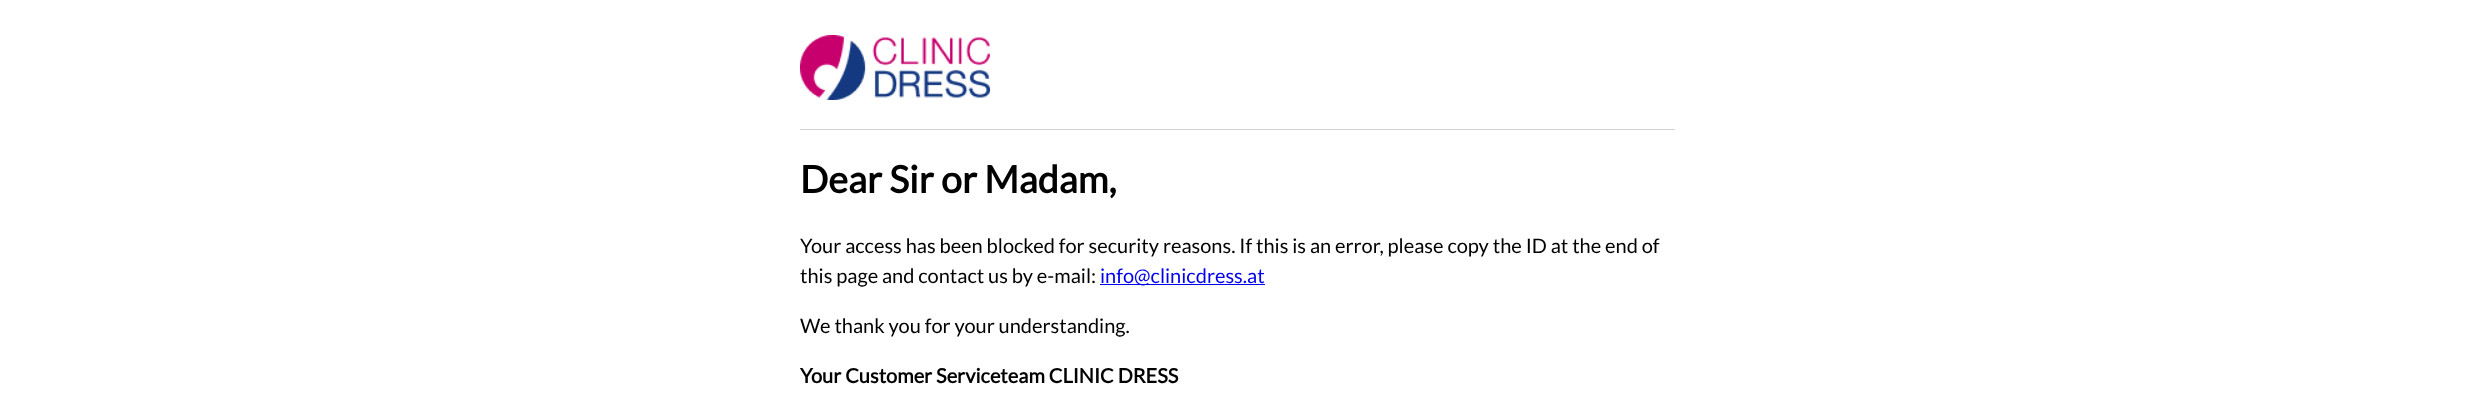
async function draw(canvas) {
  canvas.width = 2474;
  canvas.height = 395;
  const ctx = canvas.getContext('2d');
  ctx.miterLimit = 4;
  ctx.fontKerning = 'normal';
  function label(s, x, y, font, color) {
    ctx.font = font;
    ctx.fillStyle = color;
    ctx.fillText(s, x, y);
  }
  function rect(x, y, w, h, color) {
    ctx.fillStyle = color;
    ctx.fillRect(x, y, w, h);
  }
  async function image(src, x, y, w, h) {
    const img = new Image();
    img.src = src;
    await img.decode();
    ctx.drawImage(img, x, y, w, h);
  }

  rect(0, 0, 2474, 395, '#fff');
  await image('assets/img1.png', 800, 35, 190, 65);
  rect(800, 129, 875, 1, '#d3d3d3');
  label('Dear Sir or Madam,', 800, 193, 'bold 37.5px Lato', '#000');
  label('Your access has been blocked for security reasons. If this is an error, please copy the ID at the end of', 800, 253, '20px Lato', '#000');
  label('this page and contact us by e-mail:', 800, 283, '20px Lato', '#000');
  rect(1100, 284, 165, 1, '#00e');
  label('info@clinicdress.at', 1100, 283, '20px Lato', '#00e');
  label('We thank you for your understanding.', 800, 333, '20px Lato', '#000');
  label('Your Customer Serviceteam CLINIC DRESS', 800, 383, 'bold 20px Lato', '#000');
}

draw(document.querySelector('canvas'));
